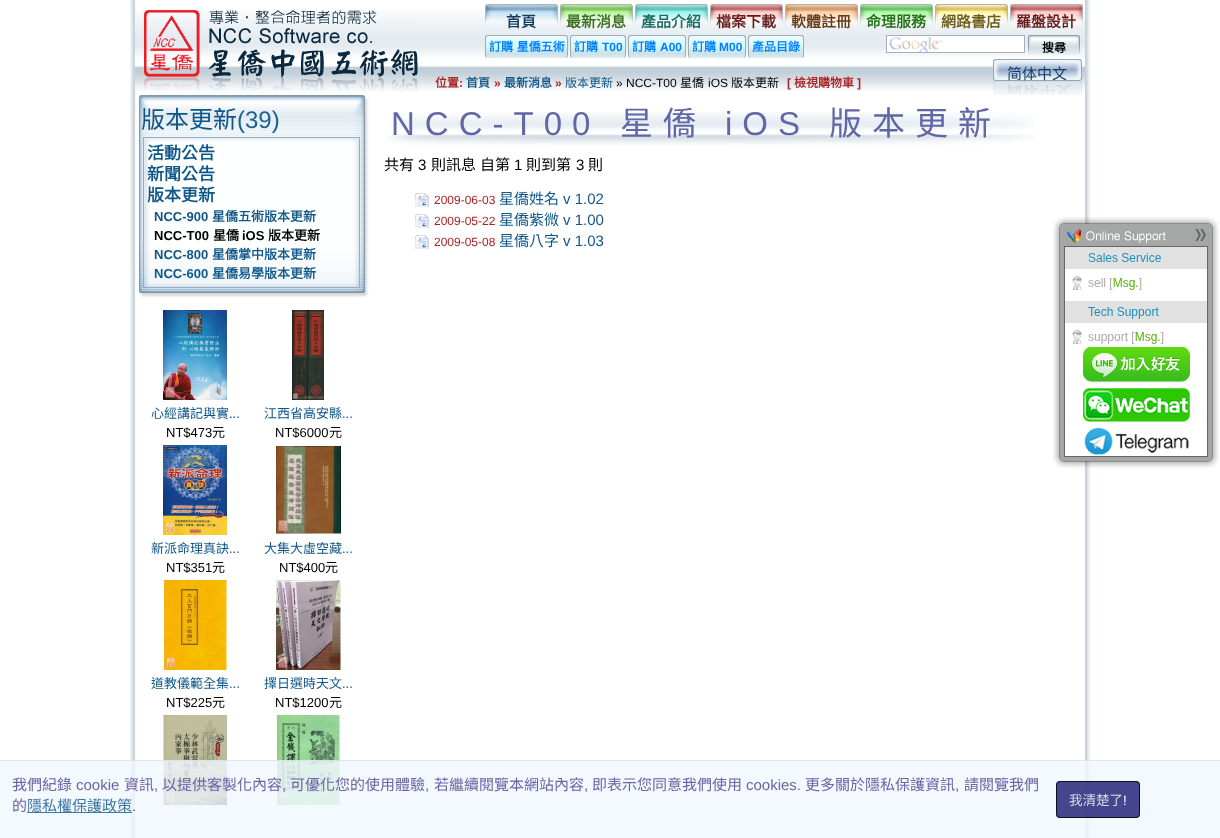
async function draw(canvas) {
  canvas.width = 1220;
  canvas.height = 838;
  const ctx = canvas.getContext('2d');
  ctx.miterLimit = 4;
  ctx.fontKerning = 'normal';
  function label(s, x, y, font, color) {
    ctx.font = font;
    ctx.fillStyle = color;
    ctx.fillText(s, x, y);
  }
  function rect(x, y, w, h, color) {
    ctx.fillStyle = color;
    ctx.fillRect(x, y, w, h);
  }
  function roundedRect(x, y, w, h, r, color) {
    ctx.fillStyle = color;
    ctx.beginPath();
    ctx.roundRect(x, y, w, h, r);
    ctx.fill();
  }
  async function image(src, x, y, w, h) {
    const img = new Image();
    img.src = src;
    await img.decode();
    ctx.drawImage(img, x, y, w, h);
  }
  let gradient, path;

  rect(0, 0, 1220, 838, '#fff');
  await image('assets/img1.png', 130, 0, 961, 838);
  await image('assets/img2.png', 135, 10, 950, 81);
  await image('assets/img3.png', 144, 10, 274, 82);
  await image('assets/img4.png', 485, 4, 73, 21);
  label('首頁', 506, 27, 'bold 15px Noto Sans CJK TC', '#103c5d');
  await image('assets/img5.png', 560, 4, 73, 21);
  label('最新消息', 566, 27, 'bold 15px Noto Sans CJK TC', '#38701d');
  await image('assets/img6.png', 635, 4, 73, 20);
  label('產品介紹', 641, 27, 'bold 15px Noto Sans CJK TC', '#1c6b64');
  await image('assets/img7.png', 710, 4, 73, 21);
  label('檔案下載', 716, 27, 'bold 15px Noto Sans CJK TC', '#651919');
  await image('assets/img8.png', 785, 4, 73, 21);
  label('軟體註冊', 791, 27, 'bold 15px Noto Sans CJK TC', '#663b16');
  await image('assets/img9.png', 860, 4, 73, 20);
  label('命理服務', 866, 27, 'bold 15px Noto Sans CJK TC', '#207016');
  await image('assets/img10.png', 935, 4, 73, 26);
  label('網路書店', 941, 27, 'bold 15px Noto Sans CJK TC', '#6c5d1a');
  await image('assets/img7.png', 1010, 4, 73, 21);
  label('羅盤設計', 1016, 27, 'bold 15px Noto Sans CJK TC', '#651919');
  ctx.save();
  ctx.beginPath();
  ctx.roundRect(485, 35, 83, 23, 3);
  ctx.clip();
  gradient = ctx.createLinearGradient(527, 36, 527, 58);
  gradient.addColorStop(0, '#edf9fd');
  gradient.addColorStop(0.4, '#d7fcfd');
  gradient.addColorStop(0.8, '#c9e2e9');
  gradient.addColorStop(1, '#e2ebf1');
  ctx.fillStyle = gradient;
  ctx.beginPath();
  ctx.roundRect(485, 36, 83, 22, [0, 0, 3, 3]);
  ctx.fill();
  ctx.restore();
  ctx.fillStyle = '#9fabb5';
  path = new Path2D('M488 35H565C567 35 568 36 568 38V55C568 57 567 58 565 58H488C486 58 485 57 485 55V38C485 36 486 35 488 35ZM488 36H565C566 36 567 37 567 38V55C567 57 566 58 565 58H488C487 58 486 57 486 55V38C486 37 487 36 488 36Z');
  ctx.fill(path, 'evenodd');
  ctx.wordSpacing = '1px';
  label('訂購 星僑五術', 489, 51, 'bold 12px Noto Sans CJK TC', '#0080ff');
  ctx.save();
  ctx.beginPath();
  ctx.roundRect(570, 35, 56, 23, 3);
  ctx.clip();
  gradient = ctx.createLinearGradient(598, 36, 598, 58);
  gradient.addColorStop(0, '#edf9fd');
  gradient.addColorStop(0.4, '#d7fcfd');
  gradient.addColorStop(0.8, '#c9e2e9');
  gradient.addColorStop(1, '#e2ebf1');
  ctx.fillStyle = gradient;
  ctx.beginPath();
  ctx.roundRect(570, 36, 56, 22, [0, 0, 3, 3]);
  ctx.fill();
  ctx.restore();
  ctx.fillStyle = '#9fabb5';
  path = new Path2D('M573 35H623C625 35 626 36 626 38V55C626 57 625 58 623 58H573C571 58 570 57 570 55V38C570 36 571 35 573 35ZM573 36H623C624 36 625 37 625 38V55C625 57 624 58 623 58H573C572 58 571 57 571 55V38C571 37 572 36 573 36Z');
  ctx.fill(path, 'evenodd');
  ctx.wordSpacing = '0px';
  label('訂購', 574, 51, 'bold 12px Noto Sans CJK TC', '#0080ff');
  label('T00', 602, 51, 'bold 12px Liberation Sans', '#0080ff');
  ctx.save();
  ctx.beginPath();
  ctx.roundRect(628, 35, 58, 23, 3);
  ctx.clip();
  gradient = ctx.createLinearGradient(657, 36, 657, 58);
  gradient.addColorStop(0, '#edf9fd');
  gradient.addColorStop(0.4, '#d7fcfd');
  gradient.addColorStop(0.8, '#c9e2e9');
  gradient.addColorStop(1, '#e2ebf1');
  ctx.fillStyle = gradient;
  ctx.beginPath();
  ctx.roundRect(628, 36, 58, 22, [0, 0, 3, 3]);
  ctx.fill();
  ctx.restore();
  ctx.fillStyle = '#9fabb5';
  path = new Path2D('M631 35H683C685 35 686 36 686 38V55C686 57 685 58 683 58H631C629 58 628 57 628 55V38C628 36 629 35 631 35ZM631 36H683C684 36 685 37 685 38V55C685 57 684 58 683 58H631C630 58 629 57 629 55V38C629 37 630 36 631 36Z');
  ctx.fill(path, 'evenodd');
  label('訂購', 632, 51, 'bold 12px Noto Sans CJK TC', '#0080ff');
  label('A00', 660, 51, 'bold 12px Liberation Sans', '#0080ff');
  ctx.save();
  ctx.beginPath();
  ctx.roundRect(688, 35, 58, 23, 3);
  ctx.clip();
  gradient = ctx.createLinearGradient(717, 36, 717, 58);
  gradient.addColorStop(0, '#edf9fd');
  gradient.addColorStop(0.4, '#d7fcfd');
  gradient.addColorStop(0.8, '#c9e2e9');
  gradient.addColorStop(1, '#e2ebf1');
  ctx.fillStyle = gradient;
  ctx.beginPath();
  ctx.roundRect(688, 36, 58, 22, [0, 0, 3, 3]);
  ctx.fill();
  ctx.restore();
  ctx.fillStyle = '#9fabb5';
  path = new Path2D('M691 35H743C745 35 746 36 746 38V55C746 57 745 58 743 58H691C689 58 688 57 688 55V38C688 36 689 35 691 35ZM691 36H743C744 36 745 37 745 38V55C745 57 744 58 743 58H691C690 58 689 57 689 55V38C689 37 690 36 691 36Z');
  ctx.fill(path, 'evenodd');
  label('訂購', 692, 51, 'bold 12px Noto Sans CJK TC', '#0080ff');
  label('M00', 719, 51, 'bold 12px Liberation Sans', '#0080ff');
  ctx.save();
  ctx.beginPath();
  ctx.roundRect(748, 35, 56, 23, 3);
  ctx.clip();
  gradient = ctx.createLinearGradient(776, 36, 776, 58);
  gradient.addColorStop(0, '#edf9fd');
  gradient.addColorStop(0.4, '#d7fcfd');
  gradient.addColorStop(0.8, '#c9e2e9');
  gradient.addColorStop(1, '#e2ebf1');
  ctx.fillStyle = gradient;
  ctx.beginPath();
  ctx.roundRect(748, 36, 56, 22, [0, 0, 3, 3]);
  ctx.fill();
  ctx.restore();
  ctx.fillStyle = '#9fabb5';
  path = new Path2D('M751 35H801C803 35 804 36 804 38V55C804 57 803 58 801 58H751C749 58 748 57 748 55V38C748 36 749 35 751 35ZM751 36H801C802 36 803 37 803 38V55C803 57 802 58 801 58H751C750 58 749 57 749 55V38C749 37 750 36 751 36Z');
  ctx.fill(path, 'evenodd');
  label('產品目錄', 752, 51, 'bold 12px Noto Sans CJK TC', '#0080ff');
  rect(887, 36, 137, 16, '#fff');
  await image('assets/img11.png', 889, 37, 54, 15);
  ctx.strokeStyle = '#a4b1bc';
  ctx.strokeRect(886.5, 35.5, 138, 17);
  await image('assets/img12.png', 1028, 35, 52, 20);
  label('搜尋', 1042, 52, 'bold 12px Noto Sans CJK TC', '#000');
  label('位置', 435, 87, 'bold 12px Noto Sans CJK TC', '#a22');
  label(':', 459, 87, 'bold 12px Liberation Sans', '#a22');
  label('首頁', 466, 87, 'bold 12px Noto Sans CJK TC', '#0f5788');
  label('»', 494, 87, 'bold 12px Liberation Sans', '#a22');
  label('最新消息', 504, 87, 'bold 12px Noto Sans CJK TC', '#0f5788');
  label('»', 555, 87, 'bold 12px Liberation Sans', '#a22');
  label('版本更新', 565, 87, '12px Noto Sans CJK TC', '#0f5788');
  label('» NCC-T00', 616, 87, '12px Liberation Sans', '#000');
  label('星僑', 680, 87, '12px Noto Sans CJK TC', '#000');
  label('iOS', 708, 87, '12px Liberation Sans', '#000');
  label('版本更新', 731, 87, '12px Noto Sans CJK TC', '#000');
  label('[', 787, 87, 'bold 12px Liberation Sans', '#a22');
  label('檢視購物車', 794, 87, 'bold 12px Noto Sans CJK TC', '#a22');
  label(']', 857, 87, 'bold 12px Liberation Sans', '#a22');
  await image('assets/img13.png', 993, 81, 89, 15);
  await image('assets/img14.png', 993, 59, 89, 22);
  label('简体中文', 1007, 79, '15px Noto Sans CJK TC', '#133b67');
  await image('assets/img15.png', 1053, 217, 166, 29);
  await image('assets/img16.png', 1067, 229, 99, 14);
  await image('assets/img17.png', 1195, 225, 16, 16);
  await image('assets/img18.png', 1053, 246, 166, 211);
  rect(1065, 269, 142, 187, '#fff');
  ctx.strokeStyle = '#666';
  ctx.strokeRect(1064.5, 246.5, 143, 210);
  await image('assets/img19.png', 1065, 247, 142, 97);
  await image('assets/img20.png', 1083, 347, 107, 36);
  await image('assets/img21.png', 1083, 388, 107, 34);
  await image('assets/img22.png', 1084, 427, 106, 28);
  await image('assets/img23.png', 1053, 457, 166, 11);
  await image('assets/img24.png', 139, 95, 230, 203);
  await image('assets/img25.png', 139, 95, 229, 37);
  label('版本更新', 141, 128, '24px Noto Sans CJK TC', '#0f5788');
  label('(39)', 237, 128, '24px Liberation Sans', '#1d618f');
  await image('assets/img26.png', 145, 138, 214, 149);
  ctx.strokeStyle = '#9aaebf';
  ctx.strokeRect(143.5, 137.5, 216, 150);
  await image('assets/img27.png', 147, 138, 209, 5);
  label('活動公告', 147, 159, 'bold 17px Noto Sans CJK TC', '#0f5788');
  label('新聞公告', 147, 180, 'bold 17px Noto Sans CJK TC', '#0f5788');
  label('版本更新', 147, 201, 'bold 17px Noto Sans CJK TC', '#0f5788');
  label('NCC-900', 154, 221, 'bold 13px Liberation Sans', '#0f5788');
  label('星僑五術版本更新', 212, 221, 'bold 13px Noto Sans CJK TC', '#0f5788');
  label('NCC-T00', 154, 240, 'bold 13px Liberation Sans', '#000');
  label('星僑', 213, 240, 'bold 13px Noto Sans CJK TC', '#000');
  label('iOS', 242, 240, 'bold 13px Liberation Sans', '#000');
  label('版本更新', 268, 240, 'bold 13px Noto Sans CJK TC', '#000');
  label('NCC-800', 154, 259, 'bold 13px Liberation Sans', '#0f5788');
  label('星僑掌中版本更新', 212, 259, 'bold 13px Noto Sans CJK TC', '#0f5788');
  label('NCC-600', 154, 278, 'bold 13px Liberation Sans', '#0f5788');
  label('星僑易學版本更新', 212, 278, 'bold 13px Noto Sans CJK TC', '#0f5788');
  await image('assets/img28.png', 163, 310, 65, 90);
  label('心經講記與實', 151, 418, '13px Noto Sans CJK TC', '#0f5788');
  label('...', 229, 418, '13px Liberation Sans', '#0f5788');
  label('NT$473', 166, 437, '13px Liberation Sans', '#000');
  label('元', 212, 437, '13px Noto Sans CJK TC', '#000');
  await image('assets/img29.png', 292, 310, 32, 90);
  label('江西省高安縣', 264, 418, '13px Noto Sans CJK TC', '#0f5788');
  label('...', 342, 418, '13px Liberation Sans', '#0f5788');
  label('NT$6000', 275, 437, '13px Liberation Sans', '#000');
  label('元', 329, 437, '13px Noto Sans CJK TC', '#000');
  await image('assets/img30.png', 163, 445, 65, 90);
  label('新派命理真訣', 151, 553, '13px Noto Sans CJK TC', '#0f5788');
  label('...', 229, 553, '13px Liberation Sans', '#0f5788');
  label('NT$351', 166, 572, '13px Liberation Sans', '#000');
  label('元', 212, 572, '13px Noto Sans CJK TC', '#000');
  await image('assets/img31.png', 276, 445, 65, 89);
  label('大集大虛空藏', 264, 553, '13px Noto Sans CJK TC', '#0f5788');
  label('...', 342, 553, '13px Liberation Sans', '#0f5788');
  label('NT$400', 279, 572, '13px Liberation Sans', '#000');
  label('元', 325, 572, '13px Noto Sans CJK TC', '#000');
  await image('assets/img32.png', 163, 580, 65, 90);
  label('道教儀範全集', 151, 688, '13px Noto Sans CJK TC', '#0f5788');
  label('...', 229, 688, '13px Liberation Sans', '#0f5788');
  label('NT$225', 166, 707, '13px Liberation Sans', '#000');
  label('元', 212, 707, '13px Noto Sans CJK TC', '#000');
  await image('assets/img33.png', 276, 580, 65, 90);
  label('擇日選時天文', 264, 688, '13px Noto Sans CJK TC', '#0f5788');
  label('...', 342, 688, '13px Liberation Sans', '#0f5788');
  label('NT$1200', 275, 707, '13px Liberation Sans', '#000');
  label('元', 329, 707, '13px Noto Sans CJK TC', '#000');
  await image('assets/img34.png', 163, 715, 64, 90);
  await image('assets/img35.png', 277, 715, 63, 90);
  rect(993, 95, 88, 1, '#fff');
  await image('assets/img36.png', 386, 112, 649, 33);
  ctx.letterSpacing = '10px';
  label('NCC-T00', 391, 135, '33px Liberation Sans', '#6166a7');
  label('星僑', 620, 135, '33px Noto Sans CJK TC', '#6166a7');
  label('iOS', 725, 135, '33px Liberation Sans', '#6166a7');
  label('版本更新', 829, 135, '33px Noto Sans CJK TC', '#6166a7');
  ctx.letterSpacing = '0px';
  label('共有', 384, 170, '15px Noto Sans CJK TC', '#000');
  label('3', 418, 170, '15px Liberation Sans', '#000');
  label('則訊息', 431, 170, '15px Noto Sans CJK TC', '#000');
  label('自第', 480, 170, '15px Noto Sans CJK TC', '#000');
  label('1', 514, 170, '15px Liberation Sans', '#000');
  label('則到第', 526, 170, '15px Noto Sans CJK TC', '#000');
  label('3', 576, 170, '15px Liberation Sans', '#000');
  label('則', 588, 170, '15px Noto Sans CJK TC', '#000');
  await image('assets/img37.png', 415, 193, 14, 14);
  label('2009-06-03', 434, 204, '12px Liberation Sans', '#a22');
  label('星僑姓名', 499, 204, '15px Noto Sans CJK TC', '#0f5788');
  label('v 1.02', 563, 204, '15px Liberation Sans', '#0f5788');
  await image('assets/img37.png', 415, 214, 14, 14);
  label('2009-05-22', 434, 225, '12px Liberation Sans', '#a22');
  label('星僑紫微', 499, 225, '15px Noto Sans CJK TC', '#0f5788');
  label('v 1.00', 563, 225, '15px Liberation Sans', '#0f5788');
  await image('assets/img37.png', 415, 235, 14, 14);
  label('2009-05-08', 434, 246, '12px Liberation Sans', '#a22');
  label('星僑八字', 499, 246, '15px Noto Sans CJK TC', '#0f5788');
  label('v 1.03', 563, 246, '15px Liberation Sans', '#0f5788');
  rect(0, 760, 1220, 78, '#f0f8ffcc');
  rect(0, 760, 1220, 1, '#dededecc');
  label('我們紀錄', 12, 790, '15px Noto Sans CJK TC', '#6d64a2');
  label('cookie', 76, 790, '15px Liberation Sans', '#6d64a2');
  label('資訊', 124, 790, '15px Noto Sans CJK TC', '#6d64a2');
  label(',', 154, 790, '15px Liberation Sans', '#6d64a2');
  label('以提供客製化內容', 162, 790, '15px Noto Sans CJK TC', '#6d64a2');
  label(',', 282, 790, '15px Liberation Sans', '#65609d');
  label('可優化您的使用體驗', 290, 790, '15px Noto Sans CJK TC', '#6d64a2');
  label(',', 425, 790, '15px Liberation Sans', '#6d64a2');
  label('若繼續閱覽本網站內容', 434, 790, '15px Noto Sans CJK TC', '#6d64a2');
  label(',', 584, 790, '15px Liberation Sans', '#6d64a2');
  label('即表示您同意我們使用', 592, 790, '15px Noto Sans CJK TC', '#6d64a2');
  label('cookies.', 746, 790, '15px Liberation Sans', '#6d64a2');
  label('更多關於隱私保護資訊', 805, 790, '15px Noto Sans CJK TC', '#6d64a2');
  label(',', 955, 790, '15px Liberation Sans', '#6d64a2');
  label('請閱覽我們', 964, 790, '15px Noto Sans CJK TC', '#6d64a2');
  label('的', 12, 811, '15px Noto Sans CJK TC', '#6d64a2');
  rect(27, 812, 105, 1, '#0f5788cc');
  label('隱私權保護政策', 27, 811, '15px Noto Sans CJK TC', '#3c779f');
  label('.', 132, 811, '15px Liberation Sans', '#6d64a2');
  roundedRect(1056, 781, 84, 37, 4, '#191970cc');
  ctx.beginPath();
  ctx.roundRect(1056.5, 781.5, 83, 36, 3.5);
  ctx.strokeStyle = '#000000cc';
  ctx.stroke();
  label('我清楚了', 1069, 805, '13.5px Noto Sans CJK TC', '#dadae8');
  label('!', 1123, 805, '13.5px Liberation Sans', '#fff');
}

draw(document.querySelector('canvas'));
